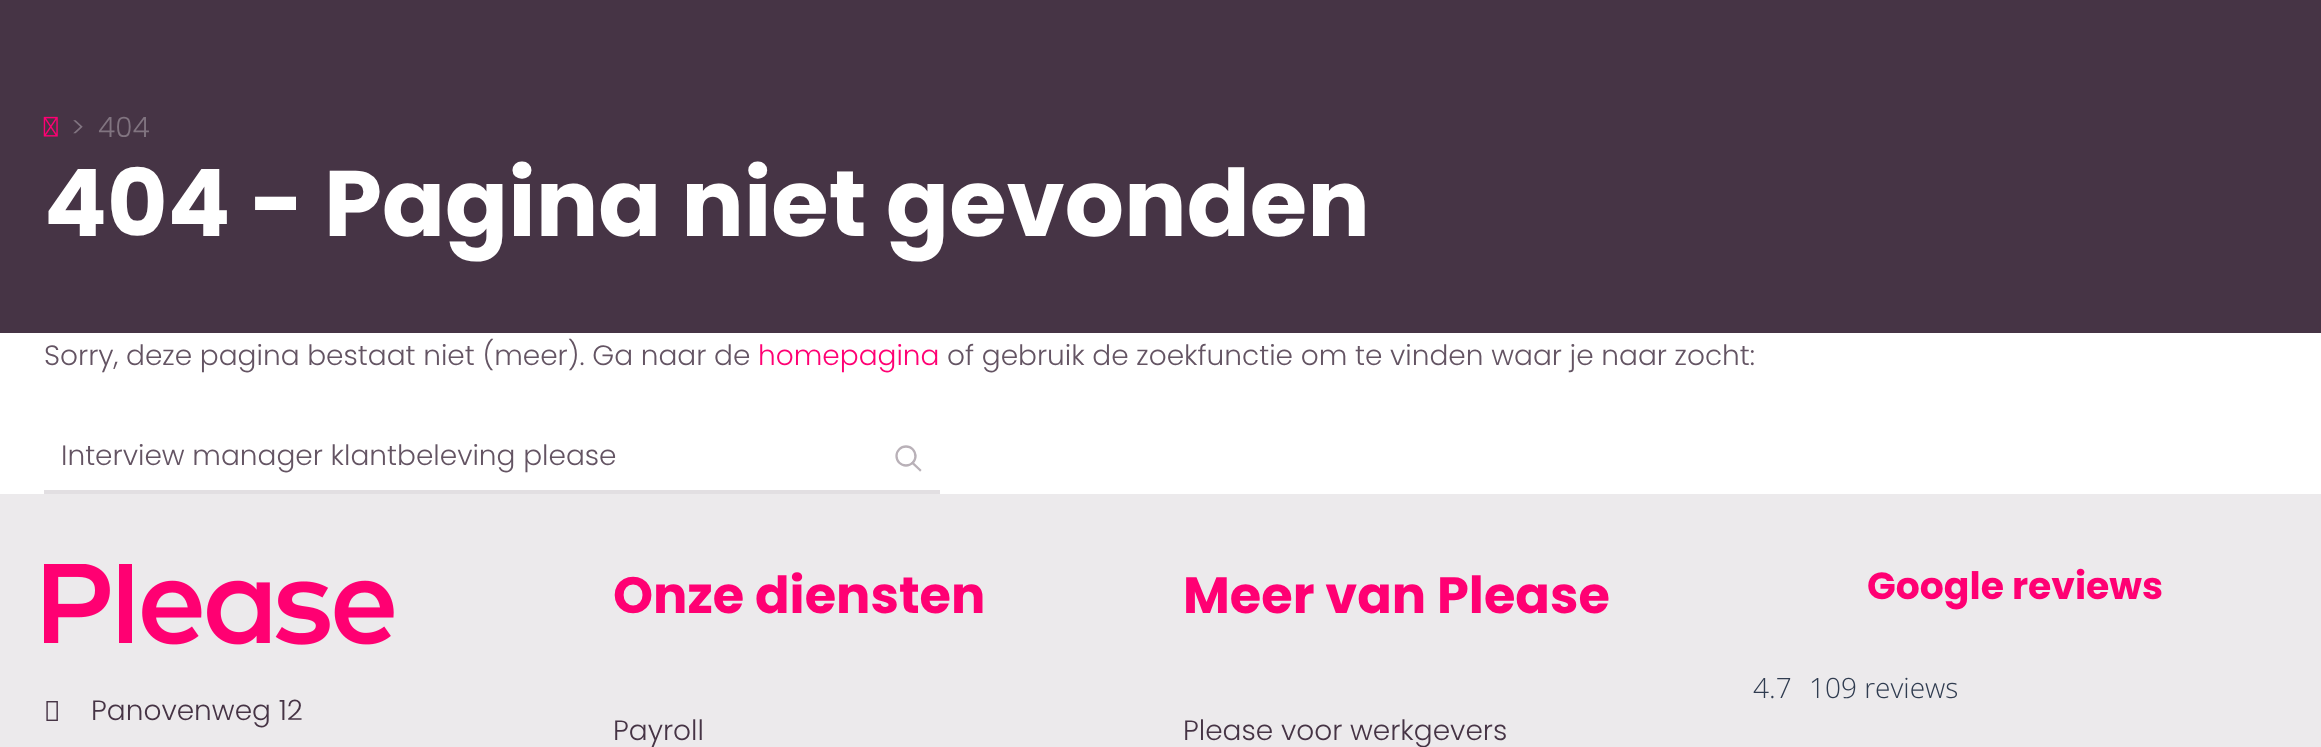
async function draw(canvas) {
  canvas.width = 2321;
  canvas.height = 747;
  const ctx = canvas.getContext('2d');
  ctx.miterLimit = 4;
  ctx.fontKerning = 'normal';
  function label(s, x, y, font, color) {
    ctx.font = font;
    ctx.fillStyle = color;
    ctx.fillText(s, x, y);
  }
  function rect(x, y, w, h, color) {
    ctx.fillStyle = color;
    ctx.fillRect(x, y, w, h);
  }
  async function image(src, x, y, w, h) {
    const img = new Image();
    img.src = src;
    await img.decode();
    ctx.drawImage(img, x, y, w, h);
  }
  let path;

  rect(0, 0, 2321, 747, '#fff');
  rect(0, 0, 2321, 333, '#463445');
  await image('assets/img1.png', 43, 116, 15, 21);
  label('>', 71, 137, '300 28px Poppins', '#817480');
  label('404', 98, 137, '300 28px Poppins', '#817480');
  label('404 - Pagina niet gevonden', 44, 236, 'bold 93px Poppins', '#fff');
  label('Sorry, deze pagina bestaat niet (meer). Ga naar de', 44, 365, '300 28px Poppins', '#645463');
  label('homepagina', 758, 365, '300 28px Poppins', '#ff0073');
  label('of gebruik de zoekfunctie om te vinden waar je naar zocht:', 947, 365, '300 28px Poppins', '#645463');
  rect(44, 490, 896, 4, '#e2dfe2');
  label('Interview manager klantbeleving please', 61, 465, '300 28px Poppins', '#645463');
  path = new Path2D('M920 470L912.5 463');
  ctx.strokeStyle = '#b9b1b8';
  ctx.lineWidth = 2.3;
  ctx.lineCap = 'square';
  ctx.stroke(path);
  ctx.beginPath();
  ctx.arc(906, 456, 9.5, 0, 2 * Math.PI);
  ctx.stroke();
  rect(0, 494, 2321, 253, '#eceaec');
  await image('assets/img2.png', 44, 564, 350, 81);
  await image('assets/img3.png', 46, 701, 12, 20);
  label('Panovenweg 12', 91, 720, '300 28px Poppins', '#463445');
  label('Onze diensten', 613, 613, 'bold 51px Poppins', '#ff0073');
  label('Payroll', 613, 740, '300 28px Poppins', '#463445');
  label('Meer van Please', 1183, 613, 'bold 51px Poppins', '#ff0073');
  label('Please voor werkgevers', 1183, 740, '300 28px Poppins', '#463445');
  label('Google reviews', 1867, 599, 'bold 37.75px Poppins', '#ff0073');
  label('4.7', 1753, 698, '300 28px Open Sans', '#303c50');
  label('109 reviews', 1809, 698, '300 28px Open Sans', '#303c50');
}

draw(document.querySelector('canvas'));
